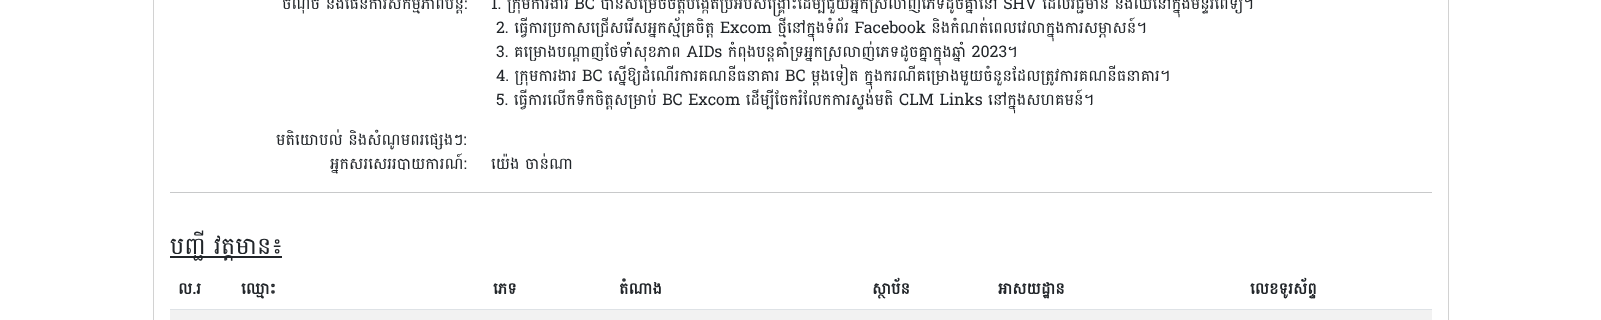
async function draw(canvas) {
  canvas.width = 1601;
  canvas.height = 320;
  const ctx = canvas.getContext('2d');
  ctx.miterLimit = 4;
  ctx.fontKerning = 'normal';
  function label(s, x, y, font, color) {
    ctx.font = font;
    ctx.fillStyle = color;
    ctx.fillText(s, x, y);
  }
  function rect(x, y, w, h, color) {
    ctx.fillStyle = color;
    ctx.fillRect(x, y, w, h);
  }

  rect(0, 0, 1601, 320, '#fff');
  ctx.strokeStyle = '#d2d2d2';
  ctx.strokeRect(153.5, -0.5, 1295, 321);
  label('ចំណុច និងផែនការសកម្មភាពបន្ត:', 282, 9, '16px Battambang', '#212529');
  label('1. ក្រុមការងារ BC បានសម្រេចចិត្តបង្កើតប្រអប់សង្គ្រោះដើម្បីជួយអ្នកស្រលាញ់ភេទដូចគ្នានៅ SHV ដែលវិជ្ជមាន និងឈឺនៅក្នុងមន្ទីរពេទ្យ។', 491, 9, '16px Battambang', '#212529');
  label('2. ធ្វើការប្រកាសជ្រើសរើសអ្នកស្ម័គ្រចិត្ត Excom ថ្មីនៅក្នុងទំព័រ Facebook និងកំណត់ពេលវេលាក្នុងការសម្ភាសន៍។', 496, 33, '16px Battambang', '#212529');
  label('3. គម្រោងបណ្តាញថែទាំសុខភាព AIDs កំពុងបន្តគាំទ្រអ្នកស្រលាញ់ភេទដូចគ្នាក្នុងឆ្នាំ 2023។', 496, 57, '16px Battambang', '#212529');
  label('4. ក្រុមការងារ BC ស្នើឱ្យដំណើរការគណនីធនាគារ BC ម្តងទៀត ក្នុងករណីគម្រោងមួយចំនួនដែលត្រូវការគណនីធនាគារ។', 496, 81, '16px Battambang', '#212529');
  label('5. ធ្វើការលើកទឹកចិត្តសម្រាប់ BC Excom ដើម្បីចែករំលែកការស្ទង់មតិ CLM Links នៅក្នុងសហគមន៍។', 496, 105, '16px Battambang', '#212529');
  label('មតិយោបល់ និងសំណូមពរផ្សេងៗ:', 276, 145, '16px Battambang', '#212529');
  label('អ្នកសរសេររបាយការណ៍:', 330, 169, '16px Battambang', '#212529');
  label('យ៉េង ចាន់ណា', 491, 169, '16px Battambang', '#212529');
  rect(170, 192, 1262, 1, '#c8c9ca');
  rect(170, 256, 112, 2, '#212529');
  label('បញ្ជី វត្តមាន៖', 170, 254, '24px Battambang', '#212529');
  label('ល.រ', 178, 294, 'bold 16px Battambang', '#212529');
  label('ឈ្មោះ', 241, 294, 'bold 16px Battambang', '#212529');
  label('ភេទ', 493, 294, 'bold 16px Battambang', '#212529');
  label('តំណាង', 619, 294, 'bold 16px Battambang', '#212529');
  label('ស្ថាប័ន', 872, 294, 'bold 16px Battambang', '#212529');
  label('អាសយដ្ឋាន', 998, 294, 'bold 16px Battambang', '#212529');
  rect(170, 309, 1262, 1, '#dee2e6');
  label('លេខទូរស័ព្ទ', 1250, 294, 'bold 16px Battambang', '#212529');
  rect(170, 310, 1262, 10, '#f2f2f2');
}

draw(document.querySelector('canvas'));
